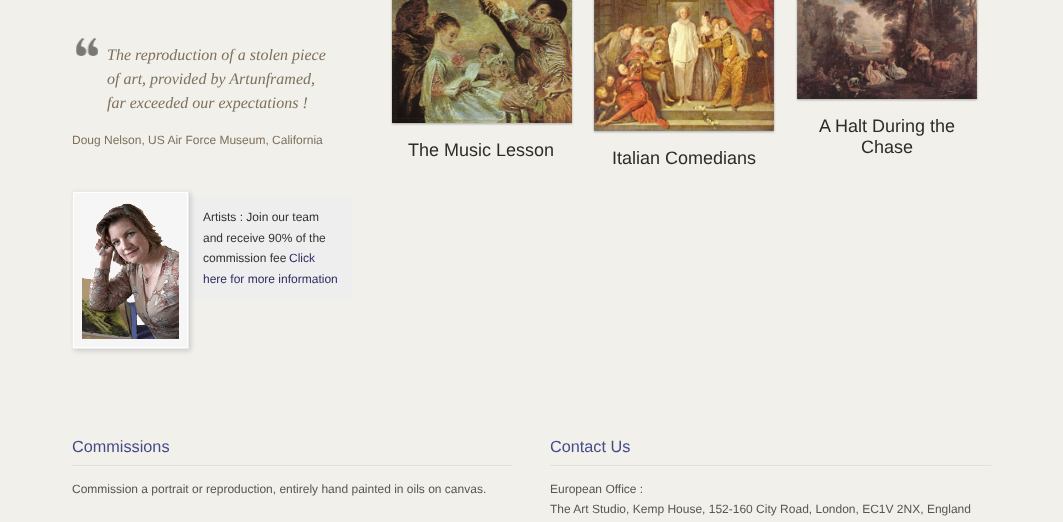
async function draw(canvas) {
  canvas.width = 1063;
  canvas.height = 522;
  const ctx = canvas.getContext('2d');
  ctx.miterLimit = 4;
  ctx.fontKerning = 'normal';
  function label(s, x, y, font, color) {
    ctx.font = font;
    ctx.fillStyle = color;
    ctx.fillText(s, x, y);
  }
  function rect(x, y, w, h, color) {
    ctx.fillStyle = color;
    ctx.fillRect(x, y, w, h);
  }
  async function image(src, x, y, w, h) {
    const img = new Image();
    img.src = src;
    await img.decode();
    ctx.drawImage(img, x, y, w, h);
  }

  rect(0, 0, 1063, 522, '#f2f0ea');
  await image('assets/img1.png', 76, 38, 22, 18);
  label('The reproduction of a stolen piece', 107, 60, 'italic 16px Liberation Serif', '#7d705d');
  label('of art, provided by Artunframed,', 107, 84, 'italic 16px Liberation Serif', '#7d705d');
  label('far exceeded our expectations !', 107, 108, 'italic 16px Liberation Serif', '#7d705d');
  label('Doug Nelson, US Air Force Museum, California', 72, 144, '12px Liberation Sans', '#7d705d');
  rect(189, 197, 163, 102, '#eee');
  ctx.fillStyle = '#ccc';
  ctx.filter = 'blur(2.5px)';
  ctx.beginPath();
  ctx.rect(74, 193, 117, 158);
  ctx.fill();
  ctx.filter = 'none';
  rect(74, 193, 113, 154, '#f6f6f6');
  ctx.strokeStyle = '#eaeaea';
  ctx.strokeRect(72.5, 191.5, 116, 157);
  ctx.strokeStyle = '#fff';
  ctx.strokeRect(73.5, 192.5, 114, 155);
  await image('assets/img2.png', 82, 203, 97, 136);
  label('Artists : Join our team', 203, 221, '12px Liberation Sans', '#333');
  label('and receive 90% of the', 203, 242, '12px Liberation Sans', '#333');
  label('commission fee', 203, 262, '12px Liberation Sans', '#333');
  label('Click', 289, 262, '12px Liberation Sans', '#2e2d63');
  label('here for more information', 203, 283, '12px Liberation Sans', '#2e2d63');
  ctx.fillStyle = '#0000004d';
  ctx.filter = 'blur(1px)';
  ctx.beginPath();
  ctx.rect(392, -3, 180, 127);
  ctx.fill();
  ctx.filter = 'none';
  await image('assets/img3.png', 392, 0, 180, 123);
  label('The Music Lesson', 408, 156, '18px Liberation Sans', '#2e2c28');
  ctx.fillStyle = '#0000004d';
  ctx.filter = 'blur(1px)';
  ctx.beginPath();
  ctx.rect(594, -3, 180, 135);
  ctx.fill();
  ctx.filter = 'none';
  await image('assets/img4.png', 594, 0, 180, 131);
  label('Italian Comedians', 612, 164, '18px Liberation Sans', '#2e2c28');
  ctx.fillStyle = '#0000004d';
  ctx.filter = 'blur(1px)';
  ctx.beginPath();
  ctx.rect(797, -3, 180, 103);
  ctx.fill();
  ctx.filter = 'none';
  await image('assets/img5.png', 797, 0, 180, 99);
  label('A Halt During the', 819, 132, '18px Liberation Sans', '#2e2c28');
  label('Chase', 861, 153, '18px Liberation Sans', '#2e2c28');
  await image('assets/img6.png', 72, 465, 441, 2);
  label('Commissions', 72, 452, '16.25px Liberation Sans', '#444c8a');
  label('Commission a portrait or reproduction, entirely hand painted in oils on canvas.', 72, 493, '12px Liberation Sans', '#555751');
  await image('assets/img6.png', 550, 465, 441, 2);
  label('Contact Us', 550, 452, '16.25px Liberation Sans', '#444c8a');
  label('European Office :', 550, 493, '12px Liberation Sans', '#555751');
  label('The Art Studio, Kemp House, 152-160 City Road, London, EC1V 2NX, England', 550, 513, '12px Liberation Sans', '#555751');
}

draw(document.querySelector('canvas'));
